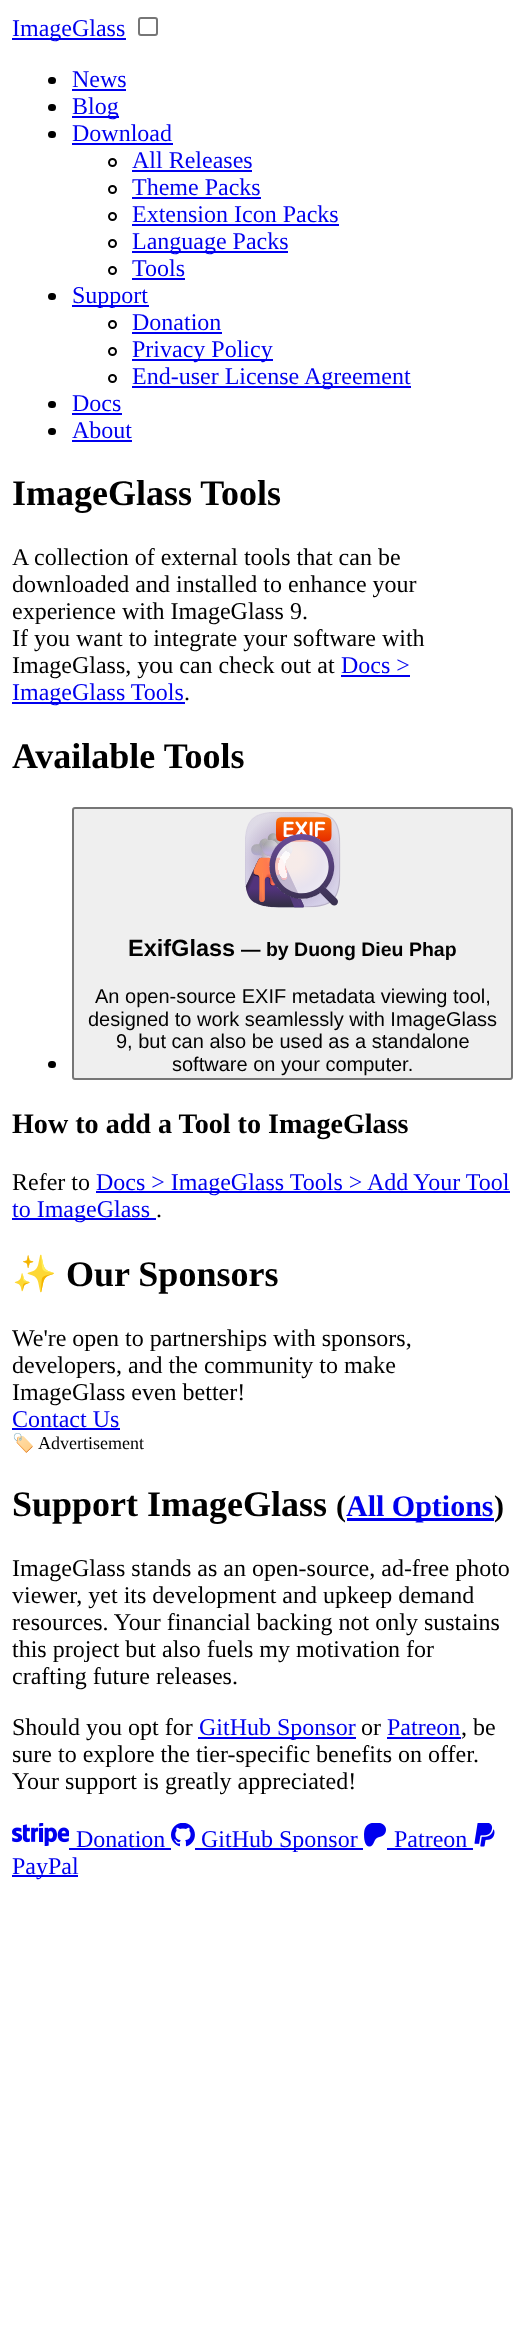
async function draw(canvas) {
  canvas.width = 525;
  canvas.height = 2326;
  const ctx = canvas.getContext('2d');
  ctx.miterLimit = 4;
  ctx.fontKerning = 'normal';
  function label(s, x, y, font, color) {
    ctx.font = font;
    ctx.fillStyle = color;
    ctx.fillText(s, x, y);
  }
  function rect(x, y, w, h, color) {
    ctx.fillStyle = color;
    ctx.fillRect(x, y, w, h);
  }
  function roundedRect(x, y, w, h, r, color) {
    ctx.fillStyle = color;
    ctx.beginPath();
    ctx.roundRect(x, y, w, h, r);
    ctx.fill();
  }
  async function image(src, x, y, w, h) {
    const img = new Image();
    img.src = src;
    await img.decode();
    ctx.drawImage(img, x, y, w, h);
  }

  rect(0, 0, 525, 2326, '#fff');
  rect(12, 38, 114, 2, '#00e');
  label('ImageGlass', 12, 36, '24px Liberation Serif', '#00e');
  ctx.beginPath();
  ctx.roundRect(139, 18, 18, 17, 2);
  ctx.strokeStyle = '#767676';
  ctx.lineWidth = 2;
  ctx.stroke();
  roundedRect(48, 77, 8, 7, 3.5, '#000');
  label('News', 72, 87, '24px Liberation Serif', '#00e');
  rect(72, 89, 54, 2, '#00e');
  roundedRect(48, 104, 8, 7, 3.5, '#000');
  rect(72, 116, 47, 2, '#00e');
  label('Blog', 72, 114, '24px Liberation Serif', '#00e');
  roundedRect(48, 131, 8, 7, 3.5, '#000');
  label('Download', 72, 141, '24px Liberation Serif', '#00e');
  rect(72, 143, 101, 2, '#00e');
  ctx.beginPath();
  ctx.arc(112.5, 162.5, 3.5, 0, 2 * Math.PI);
  ctx.strokeStyle = '#000';
  ctx.stroke();
  label('All Releases', 132, 168, '24px Liberation Serif', '#00e');
  rect(132, 170, 120, 2, '#00e');
  ctx.beginPath();
  ctx.arc(112.5, 189.5, 3.5, 0, 2 * Math.PI);
  ctx.stroke();
  label('Theme Packs', 132, 195, '24px Liberation Serif', '#00e');
  rect(132, 197, 129, 2, '#00e');
  ctx.beginPath();
  ctx.arc(112.5, 216.5, 3.5, 0, 2 * Math.PI);
  ctx.stroke();
  label('Extension Icon Packs', 132, 222, '24px Liberation Serif', '#00e');
  rect(132, 224, 207, 2, '#00e');
  ctx.beginPath();
  ctx.arc(112.5, 243.5, 3.5, 0, 2 * Math.PI);
  ctx.stroke();
  rect(132, 251, 156, 2, '#00e');
  label('Language Packs', 132, 249, '24px Liberation Serif', '#00e');
  ctx.beginPath();
  ctx.arc(112.5, 270.5, 3.5, 0, 2 * Math.PI);
  ctx.stroke();
  label('Tools', 132, 276, '24px Liberation Serif', '#00e');
  rect(132, 278, 53, 2, '#00e');
  roundedRect(48, 293, 8, 7, 3.5, '#000');
  rect(72, 305, 77, 2, '#00e');
  label('Support', 72, 303, '24px Liberation Serif', '#00e');
  ctx.beginPath();
  ctx.arc(112.5, 324.5, 3.5, 0, 2 * Math.PI);
  ctx.stroke();
  label('Donation', 132, 330, '24px Liberation Serif', '#00e');
  rect(132, 332, 90, 2, '#00e');
  ctx.beginPath();
  ctx.arc(112.5, 351.5, 3.5, 0, 2 * Math.PI);
  ctx.stroke();
  rect(132, 359, 141, 2, '#00e');
  label('Privacy Policy', 132, 357, '24px Liberation Serif', '#00e');
  ctx.beginPath();
  ctx.arc(112.5, 378.5, 3.5, 0, 2 * Math.PI);
  ctx.stroke();
  rect(132, 386, 279, 2, '#00e');
  label('End-user License Agreement', 132, 384, '24px Liberation Serif', '#00e');
  roundedRect(48, 401, 8, 7, 3.5, '#000');
  label('Docs', 72, 411, '24px Liberation Serif', '#00e');
  rect(72, 413, 50, 2, '#00e');
  roundedRect(48, 428, 8, 7, 3.5, '#000');
  label('About', 72, 438, '24px Liberation Serif', '#00e');
  rect(72, 440, 60, 2, '#00e');
  label('ImageGlass Tools', 12, 505, 'bold 36px Liberation Serif', '#000');
  label('A collection of external tools that can be', 12, 565, '24px Liberation Serif', '#000');
  label('downloaded and installed to enhance your', 12, 592, '24px Liberation Serif', '#000');
  label('experience with ImageGlass 9.', 12, 619, '24px Liberation Serif', '#000');
  label('If you want to integrate your software with', 12, 646, '24px Liberation Serif', '#000');
  label('ImageGlass, you can check out at', 12, 673, '24px Liberation Serif', '#000');
  label('Docs >', 341, 673, '24px Liberation Serif', '#00e');
  rect(341, 675, 69, 2, '#00e');
  rect(12, 702, 173, 2, '#00e');
  label('ImageGlass Tools', 12, 700, '24px Liberation Serif', '#00e');
  label('.', 184, 700, '24px Liberation Serif', '#000');
  label('Available Tools', 12, 768, 'bold 36px Liberation Serif', '#000');
  roundedRect(48, 1061, 8, 7, 3.5, '#000');
  ctx.fillStyle = '#efefef';
  ctx.beginPath();
  ctx.roundRect(73, 808, 439, 271, 2);
  ctx.fill();
  ctx.strokeStyle = '#767676';
  ctx.stroke();
  await image('assets/img1.png', 245, 812, 96, 96);
  label('ExifGlass', 128, 956, 'bold 23.5px Liberation Sans', '#000');
  label('— by Duong Dieu Phap', 241, 956, 'bold 19.5px Liberation Sans', '#000');
  label('An open-source EXIF metadata viewing tool,', 95, 1003, '20px Liberation Sans', '#000');
  label('designed to work seamlessly with ImageGlass', 88, 1026, '20px Liberation Sans', '#000');
  label('9, but can also be used as a standalone', 116, 1048, '20px Liberation Sans', '#000');
  label('software on your computer.', 172, 1071, '20px Liberation Sans', '#000');
  label('How to add a Tool to ImageGlass', 12, 1133, 'bold 28.1px Liberation Serif', '#000');
  label('Refer to', 12, 1190, '24px Liberation Serif', '#000');
  rect(96, 1191, 414, 2, '#00e');
  label('Docs > ImageGlass Tools > Add Your Tool', 96, 1190, '24px Liberation Serif', '#00e');
  rect(12, 1218, 144, 2, '#00e');
  label('to ImageGlass', 12, 1217, '24px Liberation Serif', '#00e');
  label('.', 156, 1217, '24px Liberation Serif', '#000');
  label('✨', 12, 1286, 'bold 36px Noto Color Emoji', '#000');
  label('Our Sponsors', 66, 1286, 'bold 36px Liberation Serif', '#000');
  label('We\'re open to partnerships with sponsors,', 12, 1346, '24px Liberation Serif', '#000');
  label('developers, and the community to make', 12, 1373, '24px Liberation Serif', '#000');
  label('ImageGlass even better!', 12, 1400, '24px Liberation Serif', '#000');
  label('Contact Us', 12, 1427, '24px Liberation Serif', '#00e');
  rect(12, 1428, 108, 2, '#00e');
  label('🏷️', 12, 1449, '18px Noto Color Emoji', '#000');
  label('Advertisement', 38, 1449, '18px Liberation Serif', '#000');
  label('Support ImageGlass', 12, 1516, 'bold 36px Liberation Serif', '#000');
  label('(', 336, 1516, 'bold 30px Liberation Serif', '#000');
  rect(347, 1518, 147, 3, '#00e');
  label('All Options', 346, 1516, 'bold 30px Liberation Serif', '#00e');
  label(')', 494, 1516, 'bold 30px Liberation Serif', '#000');
  label('ImageGlass stands as an open-source, ad-free photo', 12, 1576, '24px Liberation Serif', '#000');
  label('viewer, yet its development and upkeep demand', 12, 1603, '24px Liberation Serif', '#000');
  label('resources. Your financial backing not only sustains', 12, 1630, '24px Liberation Serif', '#000');
  label('this project but also fuels my motivation for', 12, 1657, '24px Liberation Serif', '#000');
  label('crafting future releases.', 12, 1684, '24px Liberation Serif', '#000');
  label('Should you opt for', 12, 1735, '24px Liberation Serif', '#000');
  rect(198, 1737, 158, 2, '#00e');
  label('GitHub Sponsor', 199, 1735, '24px Liberation Serif', '#00e');
  label('or', 361, 1735, '24px Liberation Serif', '#000');
  label('Patreon', 387, 1735, '24px Liberation Serif', '#00e');
  rect(387, 1737, 74, 2, '#00e');
  label(', be', 461, 1735, '24px Liberation Serif', '#000');
  label('sure to explore the tier-specific benefits on offer.', 12, 1762, '24px Liberation Serif', '#000');
  label('Your support is greatly appreciated!', 12, 1789, '24px Liberation Serif', '#000');
  await image('assets/img2.png', 12, 1823, 57, 23);
  label('Donation', 76, 1847, '24px Liberation Serif', '#00e');
  rect(69, 1848, 102, 2, '#00e');
  await image('assets/img3.png', 171, 1823, 24, 24);
  rect(195, 1848, 162, 2, '#00e');
  label('GitHub Sponsor', 201, 1847, '24px Liberation Serif', '#00e');
  rect(357, 1848, 6, 2, '#00e');
  await image('assets/img4.png', 364, 1823, 22, 24);
  label('Patreon', 394, 1847, '24px Liberation Serif', '#00e');
  rect(387, 1848, 86, 2, '#00e');
  await image('assets/img5.png', 474, 1823, 21, 24);
  rect(12, 1875, 66, 2, '#00e');
  label('PayPal', 12, 1874, '24px Liberation Serif', '#00e');
}

draw(document.querySelector('canvas'));
